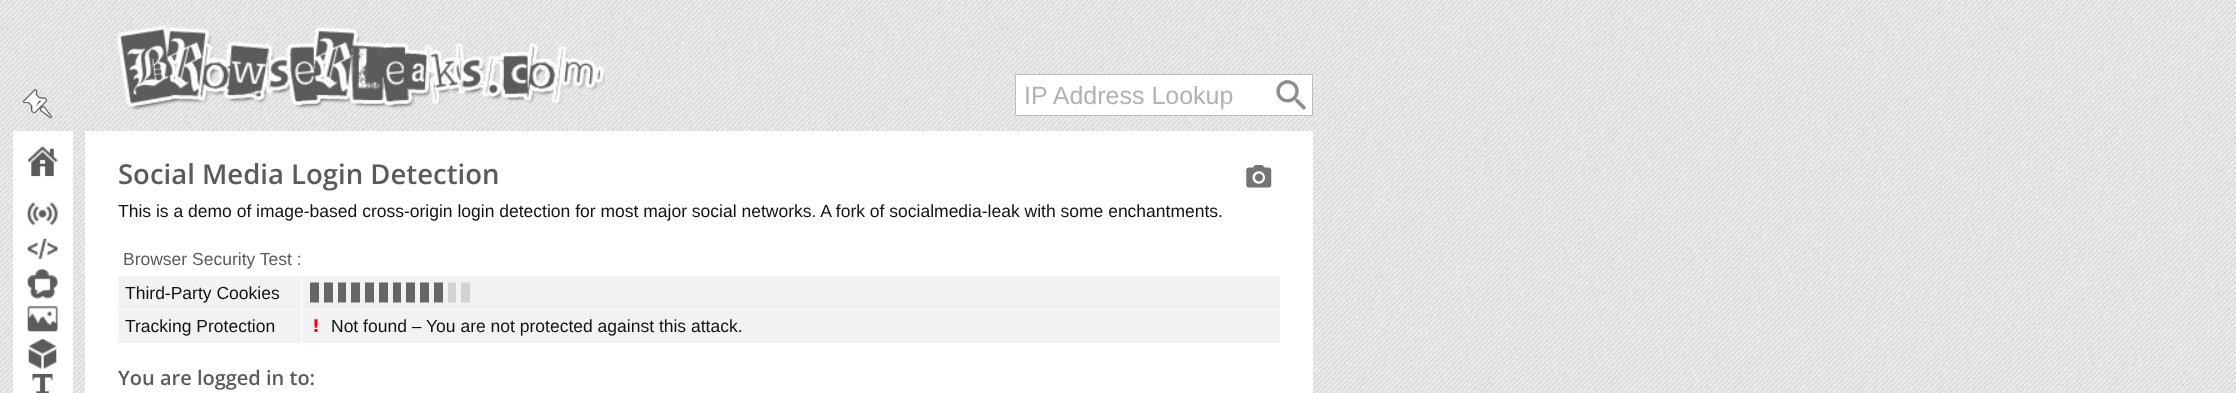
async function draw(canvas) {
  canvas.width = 2236;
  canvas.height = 393;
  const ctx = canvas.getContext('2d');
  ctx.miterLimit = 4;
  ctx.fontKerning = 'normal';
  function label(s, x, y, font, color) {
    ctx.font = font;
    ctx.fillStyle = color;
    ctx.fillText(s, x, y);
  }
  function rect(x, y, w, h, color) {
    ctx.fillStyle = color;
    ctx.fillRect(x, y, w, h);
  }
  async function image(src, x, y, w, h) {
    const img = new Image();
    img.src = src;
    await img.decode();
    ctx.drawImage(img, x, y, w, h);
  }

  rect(0, 0, 2236, 393, '#fff');
  await image('assets/img1.png', 0, 0, 2236, 393);
  await image('assets/img2.png', 117, 25, 488, 85);
  await image('assets/img3.png', 22, 88, 31, 31);
  rect(13, 131, 60, 262, '#fff');
  await image('assets/img4.png', 27, 146, 31, 31);
  await image('assets/img5.png', 27, 202, 31, 24);
  await image('assets/img6.png', 27, 238, 31, 21);
  await image('assets/img7.png', 27, 268, 31, 31);
  await image('assets/img8.png', 27, 306, 31, 26);
  await image('assets/img9.png', 28, 338, 29, 31);
  await image('assets/img10.png', 32, 373, 21, 20);
  rect(85, 131, 1228, 262, '#fff');
  ctx.beginPath();
  ctx.rect(1015.5, 74.5, 297, 41);
  ctx.fill();
  ctx.strokeStyle = '#bbb';
  ctx.stroke();
  label('IP Address Lookup', 1024, 104, '25px Liberation Sans', '#b2b2b2');
  await image('assets/img11.png', 1276, 80, 30, 30);
  label('Social Media Login Detection', 118, 184, '600 27.5px Open Sans', '#5b5b5b');
  await image('assets/img12.png', 1246, 165, 26, 23);
  label('This is a demo of image-based cross-origin login detection for most major social networks. A fork of socialmedia-leak with some enchantments.', 118, 217, '17.5px Liberation Sans', '#111');
  label('Browser Security Test :', 123, 265, '17.5px Liberation Sans', '#5b5b5b');
  rect(118, 276, 1162, 33, '#f2f2f4');
  label('Third-Party Cookies', 125, 299, '17.5px Liberation Sans', '#111');
  await image('assets/img13.png', 310, 282, 160, 21);
  rect(118, 310, 1162, 33, '#f2f2f4');
  rect(301, 275, 1, 68, '#fff');
  label('Tracking Protection', 125, 332, '17.5px Liberation Sans', '#111');
  label('!', 312, 332, 'bold 17.5px DejaVu Sans', '#f00');
  label('Not found – You are not protected against this attack.', 331, 332, '17.5px Liberation Sans', '#111');
  label('You are logged in to:', 118, 385, '600 20px Open Sans', '#5b5b5b');
}

draw(document.querySelector('canvas'));
